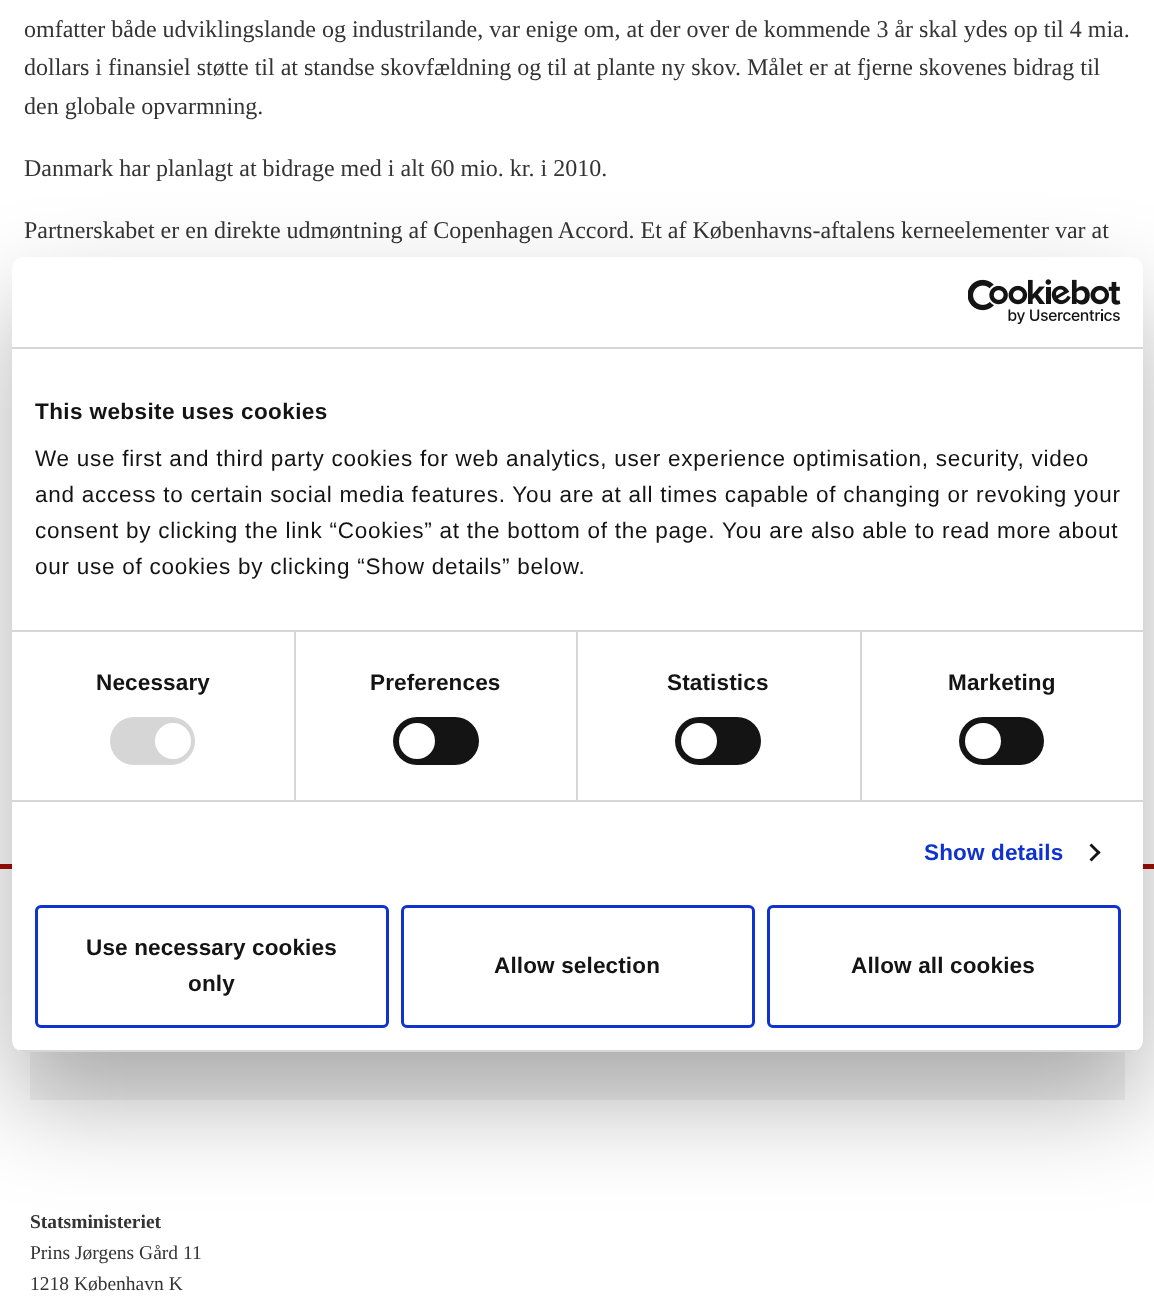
async function draw(canvas) {
  canvas.width = 1154;
  canvas.height = 1308;
  const ctx = canvas.getContext('2d');
  ctx.miterLimit = 4;
  ctx.fontKerning = 'normal';
  function label(s, x, y, font, color) {
    ctx.font = font;
    ctx.fillStyle = color;
    ctx.fillText(s, x, y);
  }
  function rect(x, y, w, h, color) {
    ctx.fillStyle = color;
    ctx.fillRect(x, y, w, h);
  }
  function roundedRect(x, y, w, h, r, color) {
    ctx.fillStyle = color;
    ctx.beginPath();
    ctx.roundRect(x, y, w, h, r);
    ctx.fill();
  }
  async function image(src, x, y, w, h) {
    const img = new Image();
    img.src = src;
    await img.decode();
    ctx.drawImage(img, x, y, w, h);
  }
  let path;

  rect(0, 0, 1154, 1308, '#fff');
  label('omfatter både udviklingslande og industrilande, var enige om, at der over de kommende 3 år skal ydes op til 4 mia.', 24, 37, '24px Liberation Serif', '#343434');
  label('dollars i finansiel støtte til at standse skovfældning og til at plante ny skov. Målet er at fjerne skovenes bidrag til', 24, 75, '24px Liberation Serif', '#343434');
  label('den globale opvarmning.', 24, 114, '24px Liberation Serif', '#343434');
  label('Danmark har planlagt at bidrage med i alt 60 mio. kr. i 2010.', 24, 176, '24px Liberation Serif', '#343434');
  label('Partnerskabet er en direkte udmøntning af Copenhagen Accord. Et af Københavns-aftalens kerneelementer var at', 24, 238, '24px Liberation Serif', '#343434');
  rect(0, 864, 1154, 5, '#a00f07');
  rect(30, 1052, 1095, 48, '#f3f2f2');
  ctx.fillStyle = '#0000004d';
  ctx.filter = 'blur(51px)';
  ctx.beginPath();
  ctx.roundRect(12, 305, 1131, 795, 12);
  ctx.fill();
  ctx.filter = 'none';
  roundedRect(12, 257, 1131, 795, 12, '#fff');
  rect(12, 347, 1131, 2, '#d6d6d6');
  await image('assets/img1.png', 968, 279, 153, 45);
  rect(12, 630, 1131, 2, '#d6d6d6');
  ctx.letterSpacing = '0.4px';
  label('This website uses cookies', 35, 419, 'bold 22.5px Liberation Sans', '#141414');
  ctx.letterSpacing = '0.75px';
  label('We use first and third party cookies for web analytics, user experience optimisation, security, video', 35, 466, '22.5px Liberation Sans', '#141414');
  label('and access to certain social media features. You are at all times capable of changing or revoking your', 35, 502, '22.5px Liberation Sans', '#141414');
  label('consent by clicking the link “Cookies” at the bottom of the page. You are also able to read more about', 35, 538, '22.5px Liberation Sans', '#141414');
  label('our use of cookies by clicking “Show details” below.', 35, 574, '22.5px Liberation Sans', '#141414');
  rect(12, 800, 1131, 2, '#d6d6d6');
  rect(294, 632, 2, 168, '#d6d6d6');
  ctx.letterSpacing = '0.15px';
  label('Necessary', 96, 690, 'bold 22.5px Liberation Sans', '#141414');
  roundedRect(110, 717, 85, 48, 24, '#d6d6d6');
  ctx.fillStyle = '#fff';
  ctx.beginPath();
  ctx.arc(173, 741, 18, 0, 2 * Math.PI);
  ctx.fill();
  rect(576, 632, 2, 168, '#d6d6d6');
  label('Preferences', 370, 690, 'bold 22.5px Liberation Sans', '#141414');
  roundedRect(393, 717, 86, 48, 24, '#141414');
  ctx.fillStyle = '#fff';
  ctx.beginPath();
  ctx.arc(417, 741, 18, 0, 2 * Math.PI);
  ctx.fill();
  rect(860, 632, 2, 168, '#d6d6d6');
  label('Statistics', 667, 690, 'bold 22.5px Liberation Sans', '#141414');
  roundedRect(675, 717, 86, 48, 24, '#141414');
  ctx.fillStyle = '#fff';
  ctx.beginPath();
  ctx.arc(699, 741, 18, 0, 2 * Math.PI);
  ctx.fill();
  label('Marketing', 948, 690, 'bold 22.5px Liberation Sans', '#141414');
  roundedRect(959, 717, 85, 48, 24, '#141414');
  ctx.fillStyle = '#fff';
  ctx.beginPath();
  ctx.arc(983, 741, 18, 0, 2 * Math.PI);
  ctx.fill();
  label('Show details', 924, 860, 'bold 22.5px Liberation Sans', '#1032cf');
  ctx.fillStyle = '#141414';
  path = new Path2D('M1091.5 843.5L1100.5 852.5L1098.5 854.5L1089.5 845.5Z');
  ctx.fill(path);
  path = new Path2D('M1098.5 850.5L1100.5 852.5L1091.5 861.5L1089.5 859.5Z');
  ctx.fill(path);
  ctx.save();
  ctx.beginPath();
  ctx.roundRect(12, 257, 1131, 795, 12);
  ctx.clip();
  rect(12, 1050, 1131, 2, '#d6d6d6');
  ctx.restore();
  ctx.beginPath();
  ctx.roundRect(36.5, 906.5, 351, 120, 4.5);
  ctx.strokeStyle = '#1032cf';
  ctx.lineWidth = 3;
  ctx.stroke();
  label('Use necessary cookies', 86, 955, 'bold 22.5px Liberation Sans', '#141414');
  label('only', 188, 991, 'bold 22.5px Liberation Sans', '#141414');
  ctx.beginPath();
  ctx.roundRect(402.5, 906.5, 351, 120, 4.5);
  ctx.stroke();
  label('Allow selection', 494, 973, 'bold 22.5px Liberation Sans', '#141414');
  ctx.beginPath();
  ctx.roundRect(768.5, 906.5, 351, 120, 4.5);
  ctx.stroke();
  label('Allow all cookies', 851, 973, 'bold 22.5px Liberation Sans', '#141414');
  ctx.letterSpacing = '0px';
  label('Statsministeriet', 30, 1228, 'bold 19.5px Liberation Serif', '#343434');
  label('Prins Jørgens Gård 11', 30, 1259, '19.5px Liberation Serif', '#343434');
  label('1218 København K', 30, 1290, '19.5px Liberation Serif', '#343434');
}

draw(document.querySelector('canvas'));
